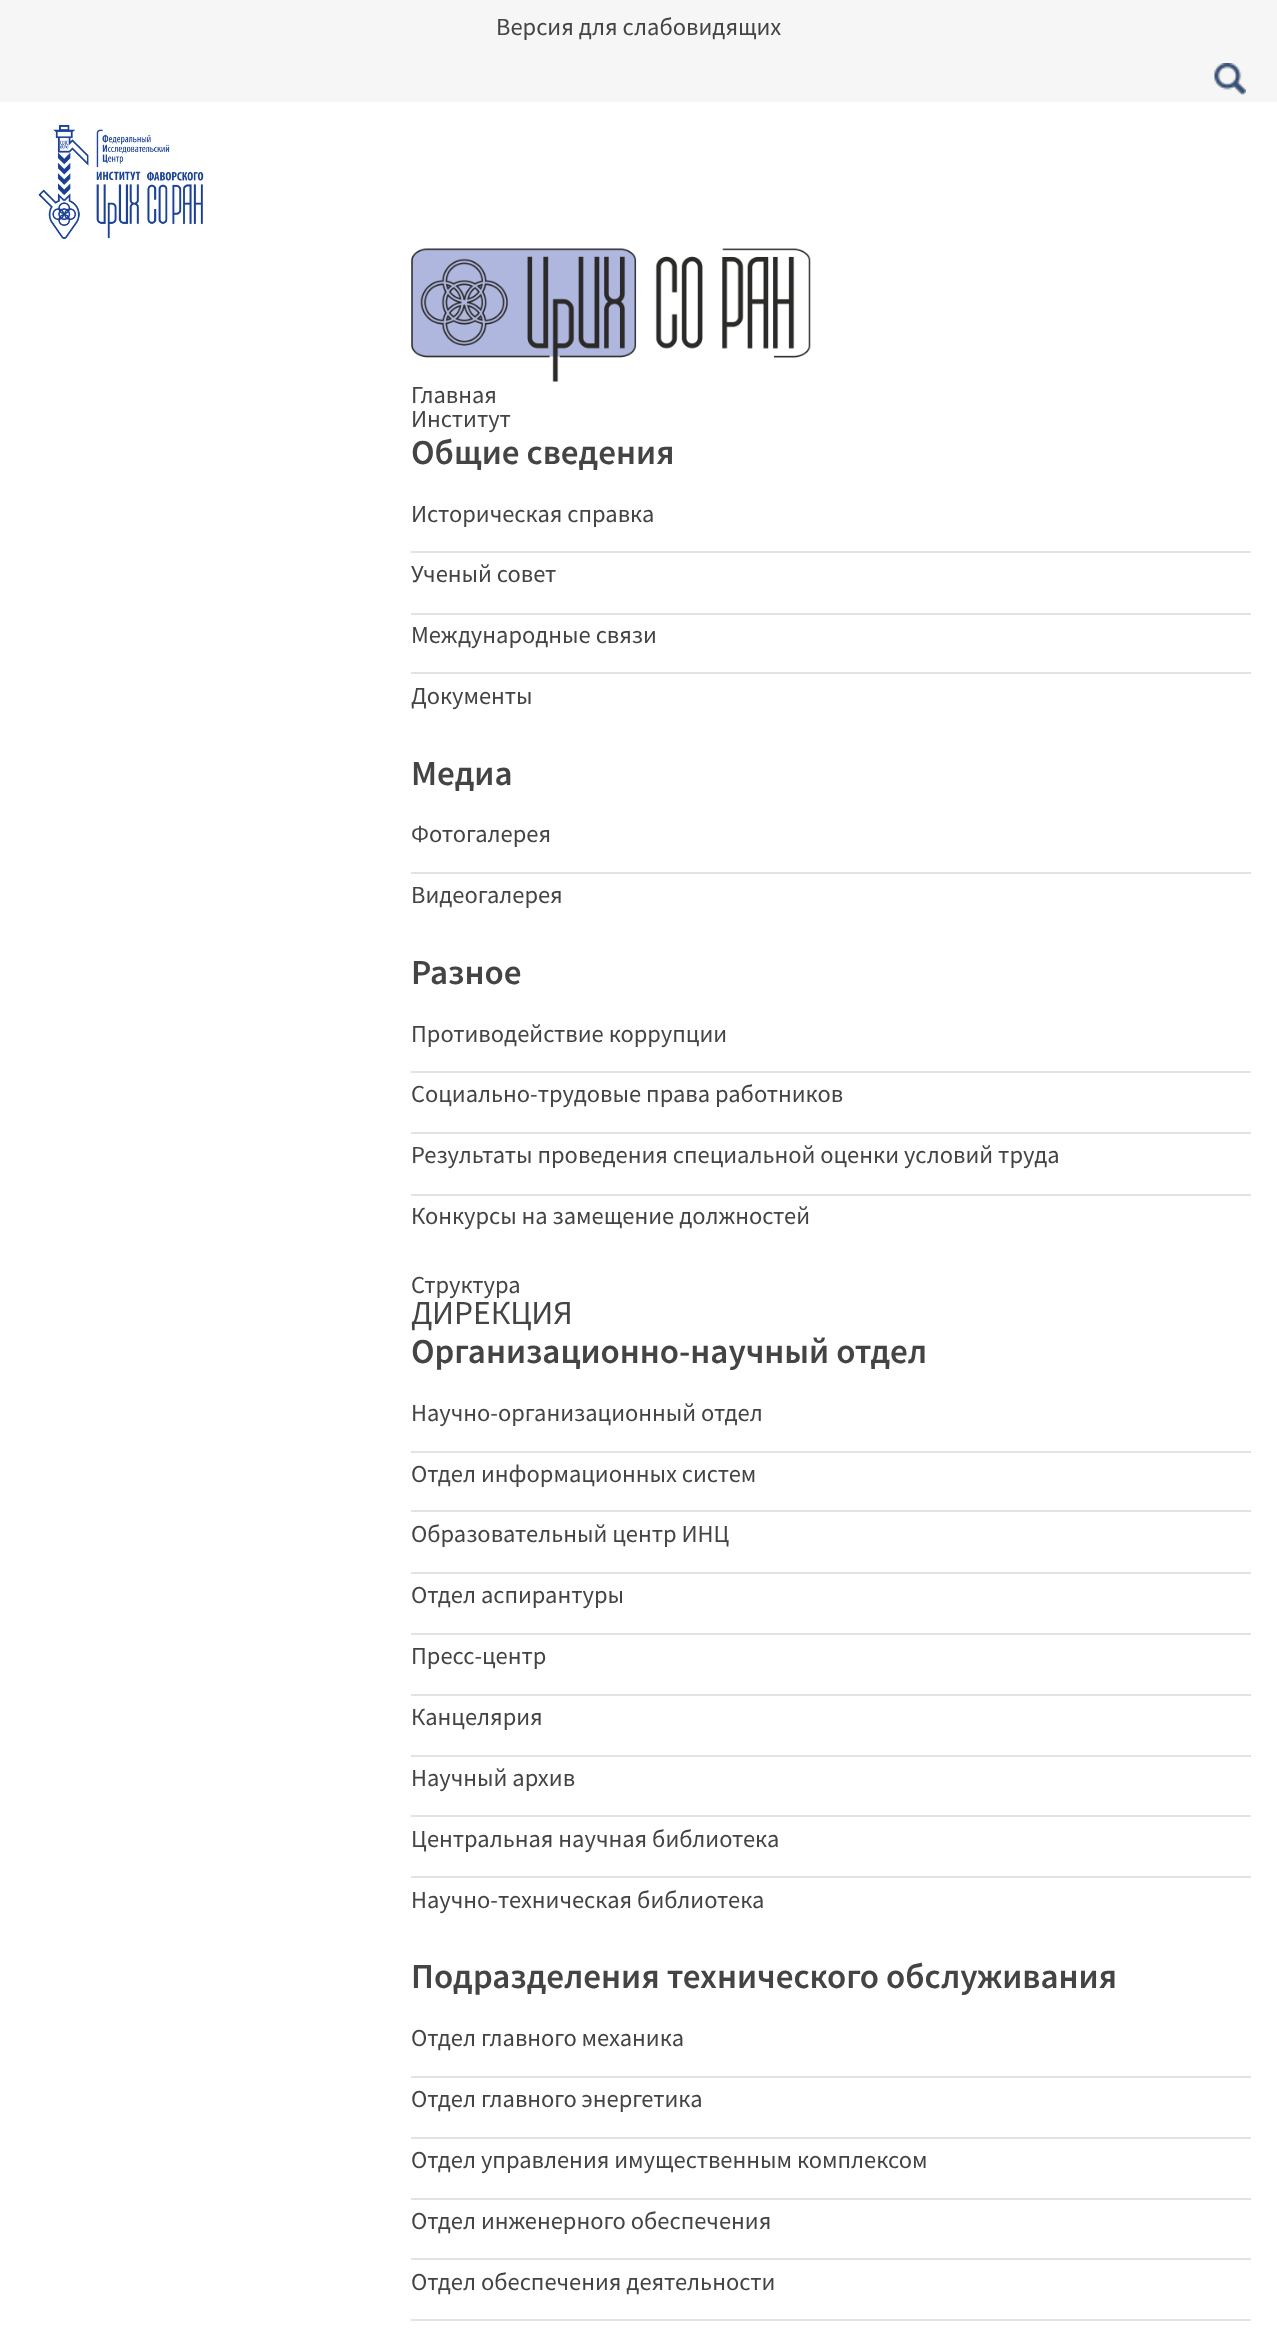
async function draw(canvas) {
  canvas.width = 1277;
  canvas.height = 2336;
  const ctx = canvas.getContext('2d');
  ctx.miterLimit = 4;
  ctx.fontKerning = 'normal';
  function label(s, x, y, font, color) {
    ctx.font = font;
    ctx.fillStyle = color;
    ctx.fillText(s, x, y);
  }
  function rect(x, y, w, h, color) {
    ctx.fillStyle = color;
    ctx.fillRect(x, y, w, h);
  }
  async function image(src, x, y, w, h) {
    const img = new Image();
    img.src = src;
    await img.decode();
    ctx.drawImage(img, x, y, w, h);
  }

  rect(0, 0, 1277, 2336, '#f6f6f6');
  label('Версия для слабовидящих', 496, 35, '24.5px Source Sans Pro', '#444');
  await image('assets/img1.png', 1214, 63, 32, 32);
  rect(0, 102, 1277, 2234, '#fff');
  await image('assets/img2.png', 38, 124, 166, 116);
  await image('assets/img3.png', 411, 248, 400, 134);
  label('Главная', 411, 403, '24.5px Source Sans Pro', '#444');
  label('Институт', 411, 427, '24.5px Source Sans Pro', '#444');
  label('Общие сведения', 411, 464, '600 35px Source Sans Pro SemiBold', '#444');
  label('Историческая справка', 411, 522, '24.5px Source Sans Pro', '#444');
  rect(411, 551, 840, 2, '#e3e3e3');
  label('Ученый совет', 411, 582, '24.5px Source Sans Pro', '#444');
  rect(411, 613, 840, 2, '#e3e3e3');
  label('Международные связи', 411, 643, '24.5px Source Sans Pro', '#444');
  rect(411, 672, 840, 2, '#e3e3e3');
  label('Документы', 411, 704, '24.5px Source Sans Pro', '#444');
  label('Медиа', 411, 785, '600 35px Source Sans Pro SemiBold', '#444');
  label('Фотогалерея', 411, 842, '24.5px Source Sans Pro', '#444');
  rect(411, 872, 840, 2, '#e3e3e3');
  label('Видеогалерея', 411, 903, '24.5px Source Sans Pro', '#444');
  label('Разное', 411, 984, '600 35px Source Sans Pro SemiBold', '#444');
  label('Противодействие коррупции', 411, 1042, '24.5px Source Sans Pro', '#444');
  rect(411, 1071, 840, 2, '#e3e3e3');
  label('Социально-трудовые права работников', 411, 1102, '24.5px Source Sans Pro', '#444');
  rect(411, 1132, 840, 2, '#e3e3e3');
  label('Результаты проведения специальной оценки условий труда', 411, 1163, '24.5px Source Sans Pro', '#444');
  rect(411, 1194, 840, 2, '#e3e3e3');
  label('Конкурсы на замещение должностей', 411, 1224, '24.5px Source Sans Pro', '#444');
  label('Структура', 411, 1293, '24.5px Source Sans Pro', '#444');
  label('ДИРЕКЦИЯ', 411, 1324, '33.5px Source Sans Pro', '#444');
  label('Организационно-научный отдел', 411, 1363, '600 35px Source Sans Pro SemiBold', '#444');
  label('Научно-организационный отдел', 411, 1421, '24.5px Source Sans Pro', '#444');
  rect(411, 1451, 840, 2, '#e3e3e3');
  label('Отдел информационных систем', 411, 1482, '24.5px Source Sans Pro', '#444');
  rect(411, 1510, 840, 2, '#e3e3e3');
  label('Образовательный центр ИНЦ', 411, 1542, '24.5px Source Sans Pro', '#444');
  rect(411, 1572, 840, 2, '#e3e3e3');
  label('Отдел аспирантуры', 411, 1603, '24.5px Source Sans Pro', '#444');
  rect(411, 1633, 840, 2, '#e3e3e3');
  label('Пресс-центр', 411, 1664, '24.5px Source Sans Pro', '#444');
  rect(411, 1694, 840, 2, '#e3e3e3');
  label('Канцелярия', 411, 1725, '24.5px Source Sans Pro', '#444');
  rect(411, 1755, 840, 2, '#e3e3e3');
  label('Научный архив', 411, 1786, '24.5px Source Sans Pro', '#444');
  rect(411, 1815, 840, 2, '#e3e3e3');
  label('Центральная научная библиотека', 411, 1847, '24.5px Source Sans Pro', '#444');
  rect(411, 1876, 840, 2, '#e3e3e3');
  label('Научно-техническая библиотека', 411, 1908, '24.5px Source Sans Pro', '#444');
  label('Подразделения технического обслуживания', 411, 1988, '600 35px Source Sans Pro SemiBold', '#444');
  label('Отдел главного механика', 411, 2046, '24.5px Source Sans Pro', '#444');
  rect(411, 2076, 840, 2, '#e3e3e3');
  label('Отдел главного энергетика', 411, 2107, '24.5px Source Sans Pro', '#444');
  rect(411, 2137, 840, 2, '#e3e3e3');
  label('Отдел управления имущественным комплексом', 411, 2168, '24.5px Source Sans Pro', '#444');
  rect(411, 2198, 840, 2, '#e3e3e3');
  label('Отдел инженерного обеспечения', 411, 2229, '24.5px Source Sans Pro', '#444');
  rect(411, 2258, 840, 2, '#e3e3e3');
  label('Отдел обеспечения деятельности', 411, 2290, '24.5px Source Sans Pro', '#444');
  rect(411, 2319, 840, 2, '#e3e3e3');
}

draw(document.querySelector('canvas'));
